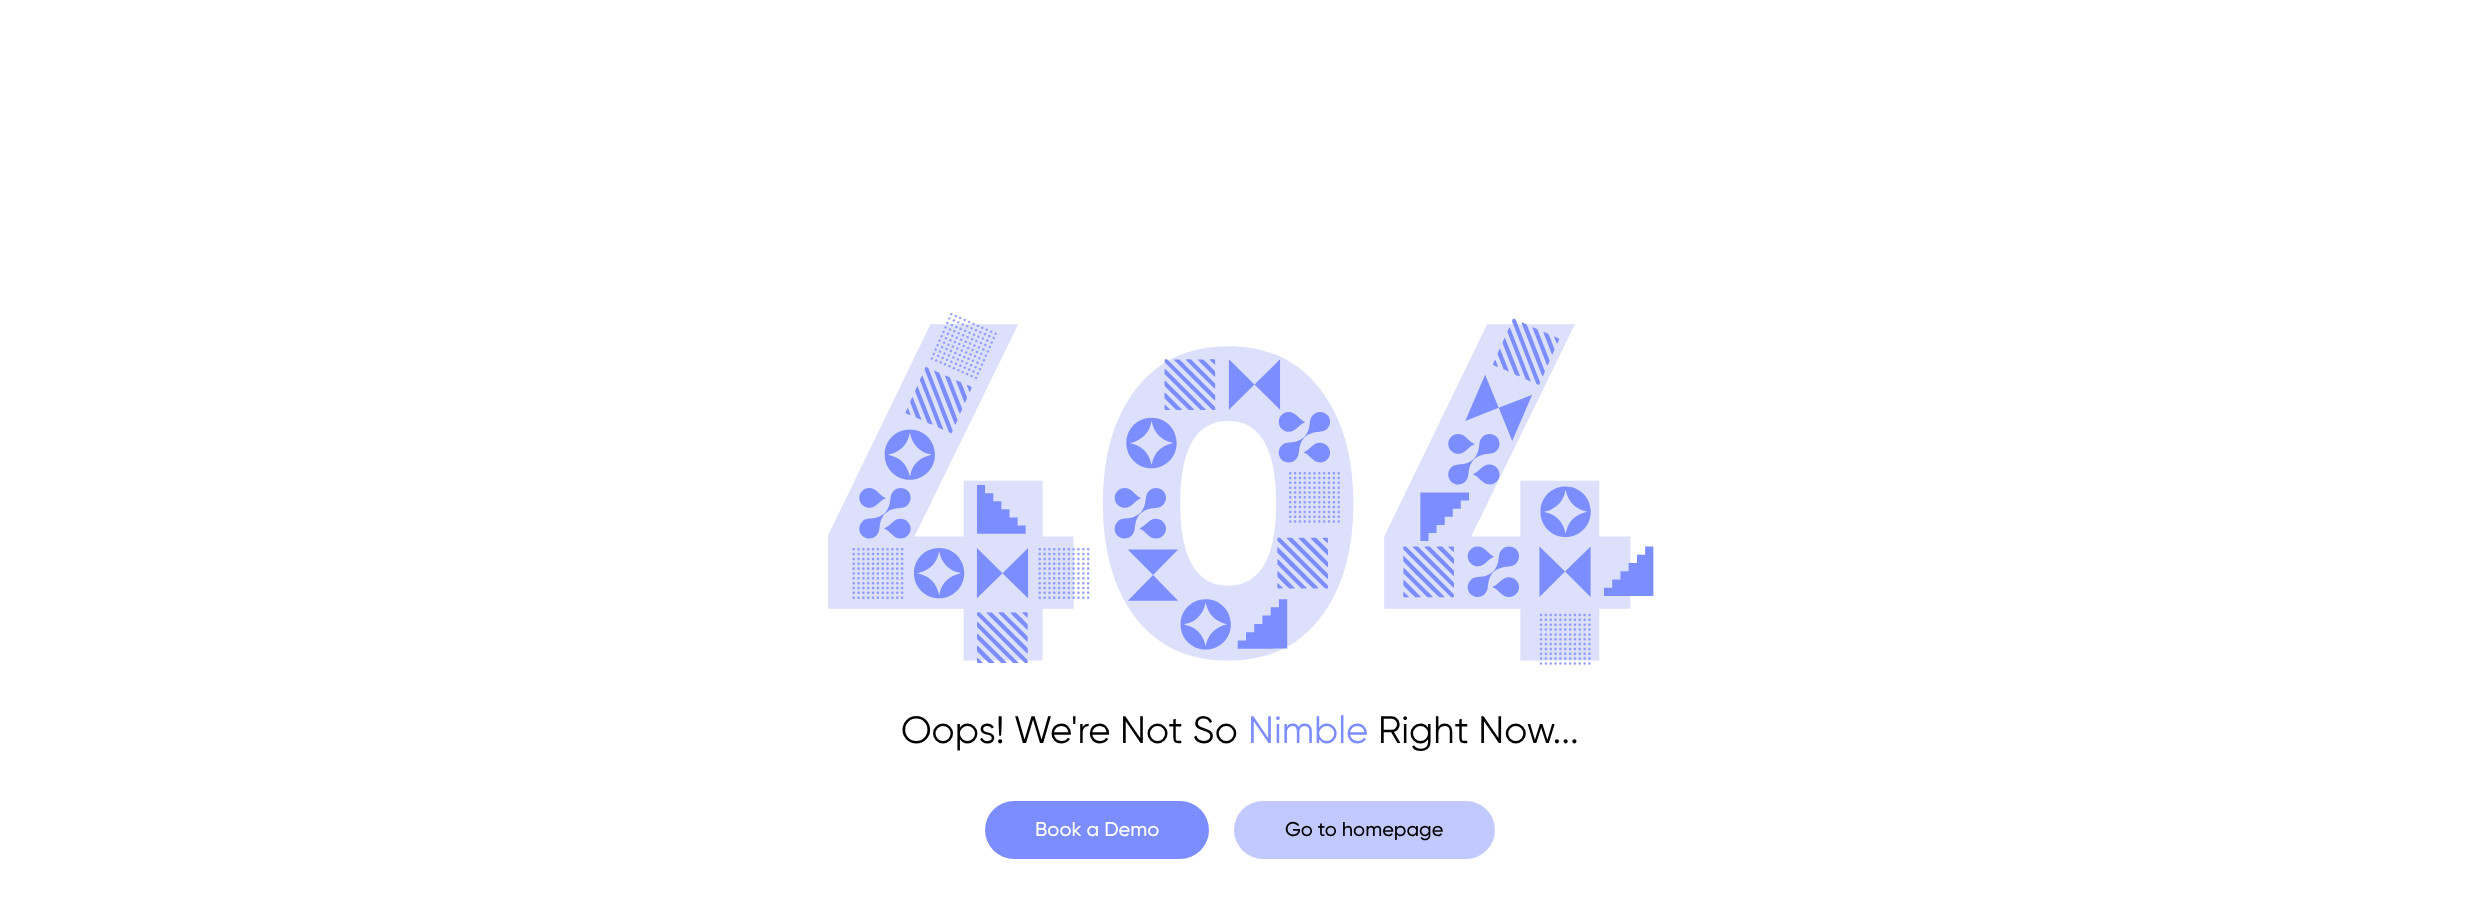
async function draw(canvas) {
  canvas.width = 2479;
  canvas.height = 922;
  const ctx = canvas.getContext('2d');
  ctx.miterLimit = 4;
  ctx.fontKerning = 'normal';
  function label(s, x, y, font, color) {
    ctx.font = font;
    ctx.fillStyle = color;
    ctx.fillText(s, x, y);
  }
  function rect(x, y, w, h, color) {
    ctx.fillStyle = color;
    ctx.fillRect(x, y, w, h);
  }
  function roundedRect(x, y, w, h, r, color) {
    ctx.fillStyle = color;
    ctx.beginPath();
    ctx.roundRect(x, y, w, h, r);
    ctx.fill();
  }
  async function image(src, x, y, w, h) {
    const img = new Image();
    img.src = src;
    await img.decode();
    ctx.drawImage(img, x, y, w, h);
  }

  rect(0, 0, 2479, 922, '#fff');
  await image('assets/img1.png', 828, 313, 826, 352);
  label('Oops! We\'re Not So', 901, 743, '38.1px Gilroy', '#000');
  label('Nimble', 1248, 743, '38.1px Gilroy', '#7c8dff');
  label('Right Now...', 1378, 743, '38.1px Gilroy', '#000');
  roundedRect(985, 801, 224, 58, 29, '#7c8dff');
  label('Book a Demo', 1035, 836, '500 20px Gilroy', '#fff');
  roundedRect(1234, 801, 261, 58, 29, '#c1c9ff');
  label('Go to homepage', 1285, 836, '500 20px Gilroy', '#000');
}

draw(document.querySelector('canvas'));
